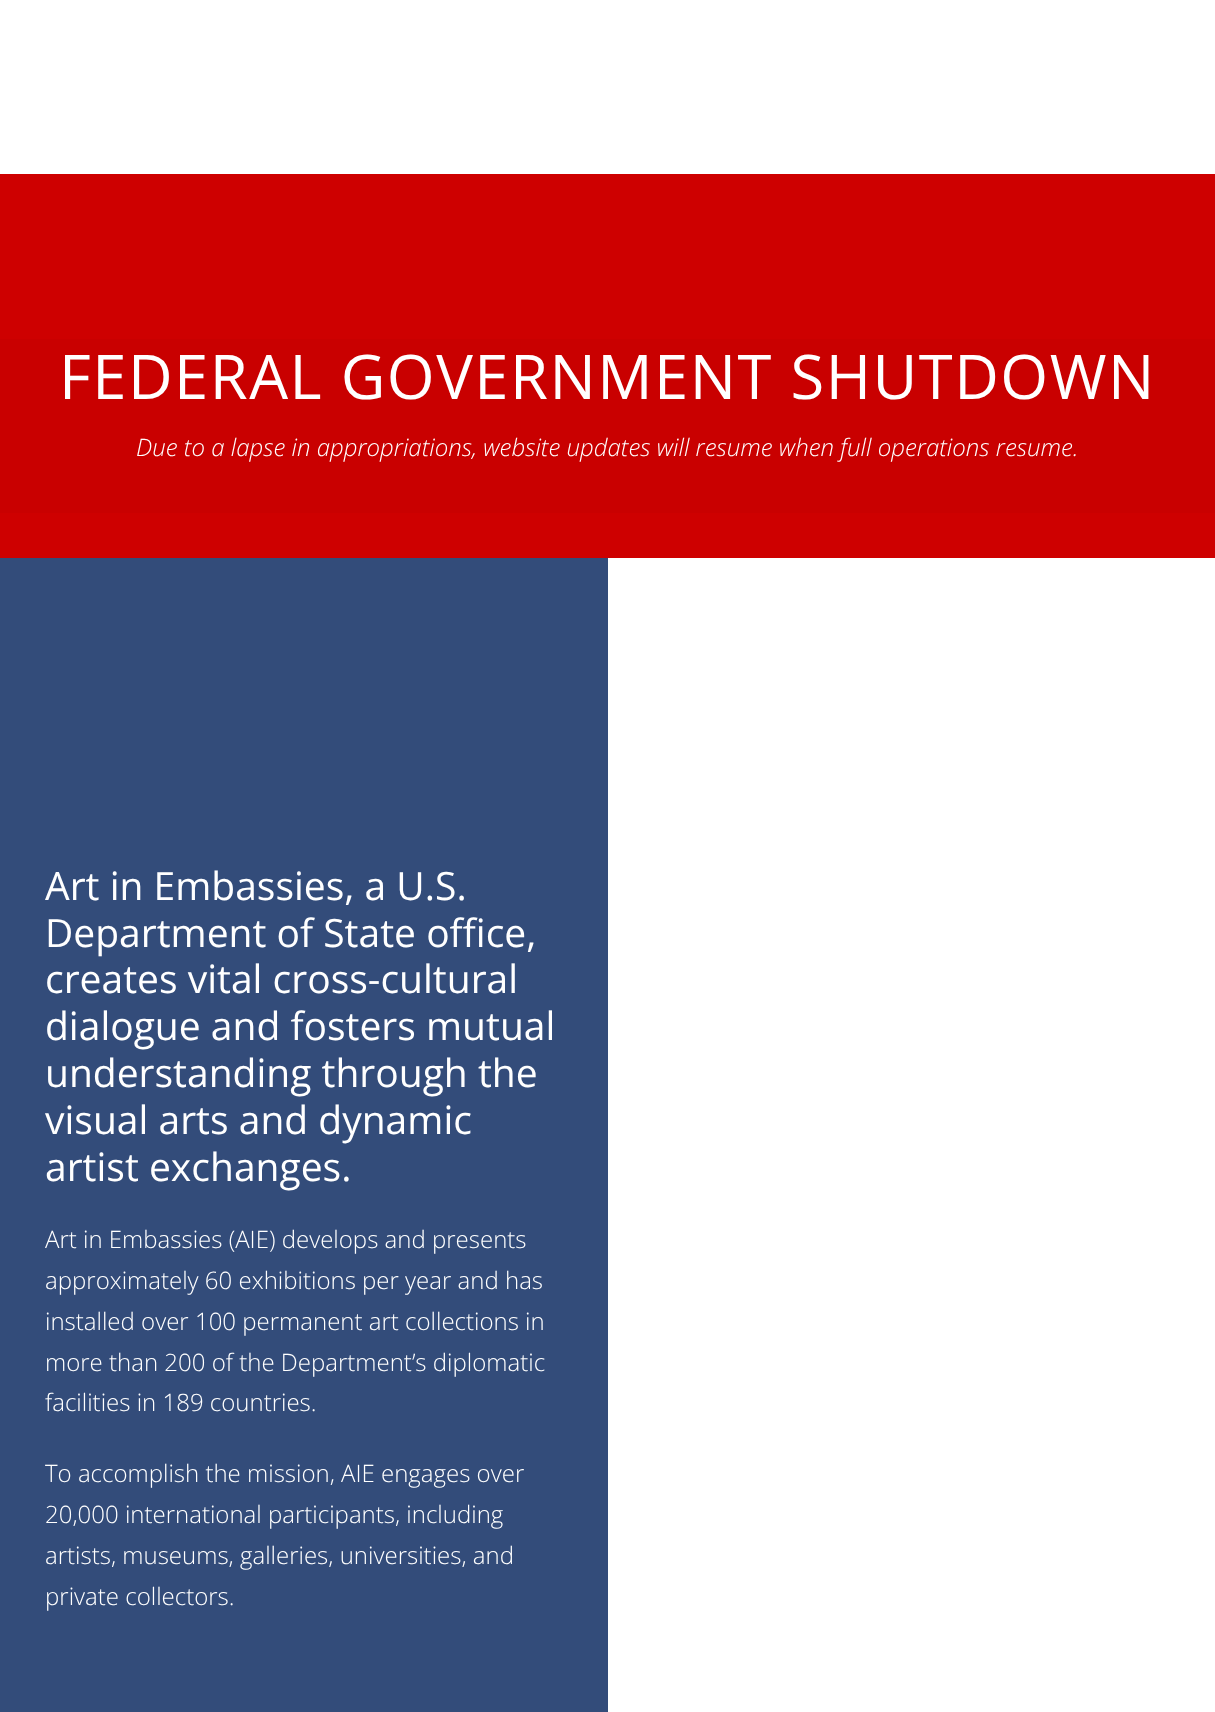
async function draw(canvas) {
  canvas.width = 1215;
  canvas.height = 1712;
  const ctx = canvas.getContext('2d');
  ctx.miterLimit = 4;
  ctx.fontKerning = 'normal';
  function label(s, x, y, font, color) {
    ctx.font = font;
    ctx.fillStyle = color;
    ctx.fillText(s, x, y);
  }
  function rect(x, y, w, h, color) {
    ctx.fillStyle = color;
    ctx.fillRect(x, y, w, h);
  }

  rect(0, 0, 1215, 1712, '#fff');
  rect(0, 174, 1215, 384, '#ce0000');
  rect(0, 339, 1215, 174, '#c90000');
  ctx.letterSpacing = '1.5px';
  label('FEDERAL GOVERNMENT SHUTDOWN', 59, 399, '61.5px Open Sans', '#fff');
  ctx.letterSpacing = '0px';
  label('Due to a lapse in appropriations, website updates will resume when full operations resume.', 136, 456, 'italic 300 24px Open Sans', '#fff');
  rect(0, 558, 608, 1154, '#334c7a');
  label('Art in Embassies, a U.S.', 45, 900, '39px Open Sans', '#fff');
  label('Department of State office,', 45, 947, '39px Open Sans', '#fff');
  label('creates vital cross-cultural', 45, 993, '39px Open Sans', '#fff');
  label('dialogue and fosters mutual', 45, 1040, '39px Open Sans', '#fff');
  label('understanding through the', 45, 1087, '39px Open Sans', '#fff');
  label('visual arts and dynamic', 45, 1134, '39px Open Sans', '#fff');
  label('artist exchanges.', 45, 1181, '39px Open Sans', '#fff');
  label('Art in Embassies (AIE) develops and presents', 45, 1248, '300 24px Open Sans', '#fff');
  label('approximately 60 exhibitions per year and has', 45, 1289, '300 24px Open Sans', '#fff');
  label('installed over 100 permanent art collections in', 45, 1330, '300 24px Open Sans', '#fff');
  label('more than 200 of the Department’s diplomatic', 45, 1371, '300 24px Open Sans', '#fff');
  label('facilities in 189 countries.', 45, 1411, '300 24px Open Sans', '#fff');
  label('To accomplish the mission, AIE engages over', 45, 1482, '300 24px Open Sans', '#fff');
  label('20,000 international participants, including', 45, 1523, '300 24px Open Sans', '#fff');
  label('artists, museums, galleries, universities, and', 45, 1564, '300 24px Open Sans', '#fff');
  label('private collectors.', 45, 1605, '300 24px Open Sans', '#fff');
}

draw(document.querySelector('canvas'));
